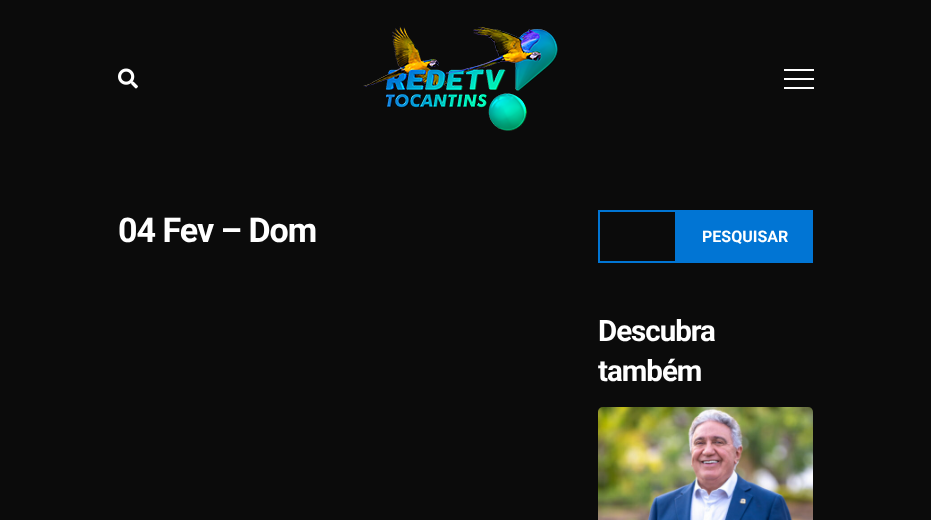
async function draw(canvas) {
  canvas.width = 931;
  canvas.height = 520;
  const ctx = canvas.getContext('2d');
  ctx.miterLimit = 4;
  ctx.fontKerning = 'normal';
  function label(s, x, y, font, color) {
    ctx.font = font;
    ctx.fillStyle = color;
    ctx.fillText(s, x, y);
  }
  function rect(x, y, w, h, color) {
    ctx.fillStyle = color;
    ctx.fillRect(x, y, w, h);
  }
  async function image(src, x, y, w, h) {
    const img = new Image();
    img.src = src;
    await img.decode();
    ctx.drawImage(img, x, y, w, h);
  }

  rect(0, 0, 931, 520, '#0b0b0b');
  await image('assets/img1.png', 118, 68, 20, 21);
  await image('assets/img2.png', 363, 26, 195, 105);
  rect(784, 69, 30, 2, '#fff');
  rect(784, 78, 30, 2, '#fff');
  rect(784, 87, 30, 2, '#fff');
  ctx.letterSpacing = '-1px';
  label('04 Fev – Dom', 118, 242, 'bold 34px Roboto', '#fff');
  ctx.strokeStyle = '#0175d4';
  ctx.lineWidth = 2;
  ctx.strokeRect(599, 211, 77, 51);
  rect(677, 210, 136, 53, '#0175d4');
  ctx.letterSpacing = '0px';
  label('PESQUISAR', 702, 242, 'bold 16px Roboto', '#fff');
  ctx.letterSpacing = '-1px';
  label('Descubra', 598, 341, 'bold 29.5px Roboto', '#fff');
  label('também', 598, 381, 'bold 29.5px Roboto', '#fff');
  await image('assets/img3.png', 598, 407, 215, 113);
}

draw(document.querySelector('canvas'));
